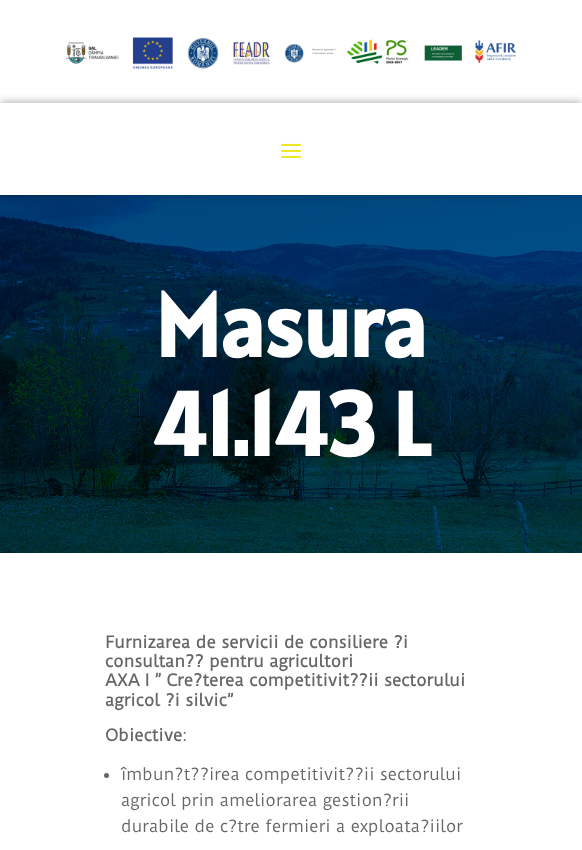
async function draw(canvas) {
  canvas.width = 582;
  canvas.height = 850;
  const ctx = canvas.getContext('2d');
  ctx.miterLimit = 4;
  ctx.fontKerning = 'normal';
  function label(s, x, y, font, color) {
    ctx.font = font;
    ctx.fillStyle = color;
    ctx.fillText(s, x, y);
  }
  function rect(x, y, w, h, color) {
    ctx.fillStyle = color;
    ctx.fillRect(x, y, w, h);
  }
  async function image(src, x, y, w, h) {
    const img = new Image();
    img.src = src;
    await img.decode();
    ctx.drawImage(img, x, y, w, h);
  }

  rect(0, 0, 582, 850, '#fff');
  await image('assets/img1.png', 65, 37, 451, 32);
  await image('assets/img3.png', 0, 195, 582, 358);
  ctx.fillStyle = '#0000004d';
  ctx.filter = 'blur(4px)';
  ctx.beginPath();
  ctx.rect(0, 102, 582, 92);
  ctx.fill();
  ctx.filter = 'none';
  rect(0, 103, 582, 92, '#fff');
  await image('assets/img2.png', 281, 143, 20, 15);
  label('Masura', 155, 357, 'bold 90px Alatsi', '#fff');
  label('41.143 L', 151, 456, 'bold 90px Alatsi', '#fff');
  label('Furnizarea de servicii de consiliere ?i', 105, 648, 'bold 16px Duru Sans', '#666');
  label('consultan?? pentru agricultori', 105, 667, 'bold 16px Duru Sans', '#666');
  label('AXA I ” Cre?terea competitivit??ii sectorului', 105, 686, 'bold 16px Duru Sans', '#666');
  label('agricol ?i silvic”', 105, 706, 'bold 16px Duru Sans', '#666');
  label('Obiective', 105, 741, 'bold 16px Duru Sans', '#666');
  label(':', 182, 741, '16px Duru Sans', '#666');
  ctx.beginPath();
  ctx.arc(106.5, 775.5, 2.5, 0, 2 * Math.PI);
  ctx.fill();
  label('îmbun?t??irea competitivit??ii sectorului', 121, 780, '16px Duru Sans', '#666');
  label('agricol prin ameliorarea gestion?rii', 121, 806, '16px Duru Sans', '#666');
  label('durabile de c?tre fermieri a exploata?iilor', 121, 832, '16px Duru Sans', '#666');
}

draw(document.querySelector('canvas'));
